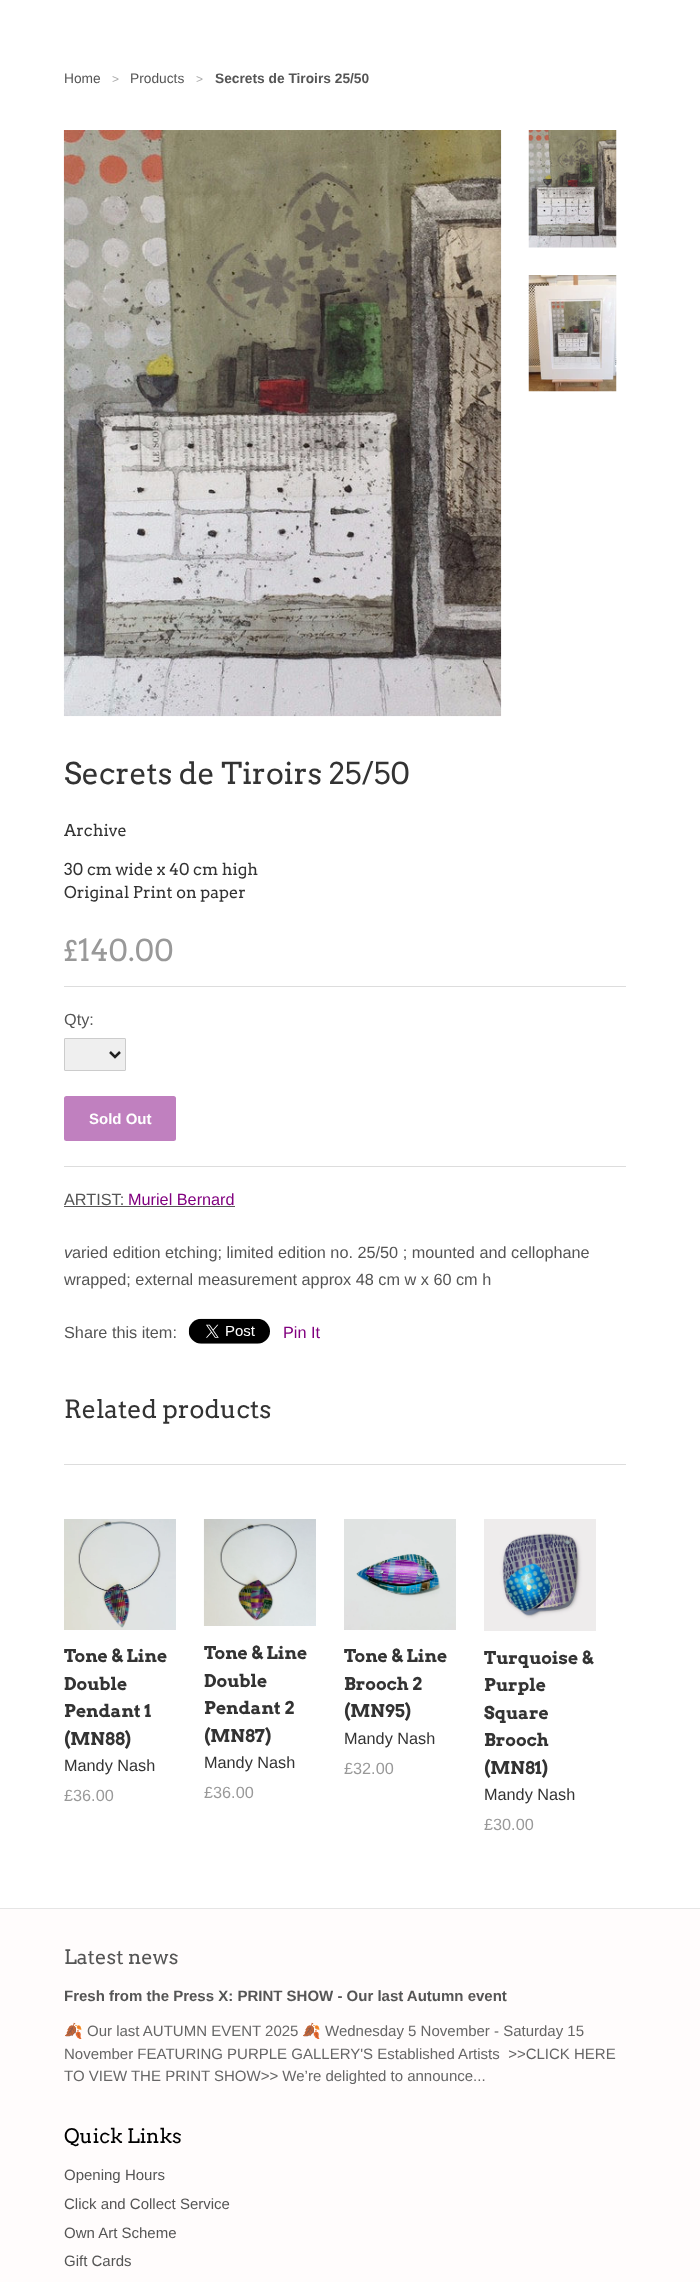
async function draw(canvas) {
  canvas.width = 700;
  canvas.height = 2282;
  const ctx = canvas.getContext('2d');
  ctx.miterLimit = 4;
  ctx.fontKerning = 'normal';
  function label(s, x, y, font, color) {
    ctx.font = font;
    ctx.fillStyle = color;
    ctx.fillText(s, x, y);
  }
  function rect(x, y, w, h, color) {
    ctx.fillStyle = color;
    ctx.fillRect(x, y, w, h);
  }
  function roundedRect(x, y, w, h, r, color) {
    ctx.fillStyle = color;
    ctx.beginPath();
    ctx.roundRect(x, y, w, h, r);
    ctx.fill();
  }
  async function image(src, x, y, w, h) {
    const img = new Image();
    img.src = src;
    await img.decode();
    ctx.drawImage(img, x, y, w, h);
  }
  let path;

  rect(0, 0, 700, 2282, '#fff');
  label('Home', 64, 83, '13.75px Liberation Sans', '#555');
  label('>', 112, 83, '12px Liberation Sans', '#aaa');
  label('Products', 130, 83, '13.75px Liberation Sans', '#555');
  label('>', 196, 83, '12px Liberation Sans', '#aaa');
  label('Secrets de Tiroirs 25/50', 215, 83, 'bold 13.75px Liberation Sans', '#555');
  await image('assets/img1.png', 63, 130, 439, 587);
  await image('assets/img2.png', 528, 130, 89, 118);
  await image('assets/img3.png', 528, 275, 89, 117);
  label('Secrets de Tiroirs 25/50', 64, 784, '30px Arvo', '#333');
  label('Archive', 64, 836, '16.25px Arvo', '#333');
  label('30 cm wide x 40 cm high', 64, 875, '16.25px Arvo', '#333');
  label('Original Print on paper', 64, 898, '16.25px Arvo', '#333');
  label('£140.00', 64, 961, '30px Arvo', '#999');
  rect(64, 986, 562, 1, '#ddd');
  rect(64, 1166, 562, 1, '#ddd');
  label('Qty:', 64, 1025, '16.25px Liberation Sans', '#555');
  ctx.fillStyle = '#efefef';
  ctx.beginPath();
  ctx.roundRect(64.5, 1038.5, 61, 32, 0.5);
  ctx.fill();
  ctx.strokeStyle = '#ccc';
  ctx.stroke();
  path = new Path2D('M110 1052L115 1057L120 1052');
  ctx.strokeStyle = '#222';
  ctx.lineWidth = 2.5;
  ctx.stroke(path);
  roundedRect(64, 1096, 112, 45, 2.5, '#c080bf');
  label('Sold Out', 89, 1124, 'bold 15px Liberation Sans', '#fff');
  label('ARTIST:', 64, 1205, '16.25px Liberation Sans', '#555');
  rect(64, 1206, 171, 1, '#555');
  label('Muriel Bernard', 128, 1205, '16.25px Liberation Sans', '#81007f');
  label('v', 64, 1258, 'italic 16.25px Liberation Sans', '#555');
  label('aried edition etching; limited edition no. 25/50 ; mounted and cellophane', 72, 1258, '16.25px Liberation Sans', '#555');
  label('wrapped; external measurement approx 48 cm w x 60 cm h', 64, 1285, '16.25px Liberation Sans', '#555');
  label('Share this item:', 64, 1338, '16.25px Liberation Sans', '#555');
  await image('assets/img4.png', 188, 1318, 82, 26);
  label('Pin It', 283, 1338, '16.25px Liberation Sans', '#81007f');
  rect(64, 1464, 562, 1, '#ddd');
  label('Related products', 64, 1418, '25px Arvo', '#333');
  await image('assets/img5.png', 64, 1519, 112, 111);
  label('Tone & Line', 64, 1662, 'bold 17.5px Arvo', '#333');
  label('Double', 64, 1690, 'bold 17.5px Arvo', '#333');
  label('Pendant 1', 64, 1717, 'bold 17.5px Arvo', '#333');
  label('(MN88)', 64, 1745, 'bold 17.5px Arvo', '#333');
  label('Mandy Nash', 64, 1771, '16.25px Liberation Sans', '#333');
  label('£36.00', 64, 1801, '16.25px Liberation Sans', '#999');
  await image('assets/img6.png', 203, 1519, 113, 107);
  label('Tone & Line', 204, 1659, 'bold 17.5px Arvo', '#333');
  label('Double', 204, 1687, 'bold 17.5px Arvo', '#333');
  label('Pendant 2', 204, 1714, 'bold 17.5px Arvo', '#333');
  label('(MN87)', 204, 1742, 'bold 17.5px Arvo', '#333');
  label('Mandy Nash', 204, 1768, '16.25px Liberation Sans', '#333');
  label('£36.00', 204, 1798, '16.25px Liberation Sans', '#999');
  await image('assets/img7.png', 344, 1519, 112, 111);
  label('Tone & Line', 344, 1662, 'bold 17.5px Arvo', '#333');
  label('Brooch 2', 344, 1690, 'bold 17.5px Arvo', '#333');
  label('(MN95)', 344, 1717, 'bold 17.5px Arvo', '#333');
  label('Mandy Nash', 344, 1744, '16.25px Liberation Sans', '#333');
  label('£32.00', 344, 1774, '16.25px Liberation Sans', '#999');
  await image('assets/img8.png', 484, 1519, 112, 112);
  label('Turquoise &', 484, 1664, 'bold 17.5px Arvo', '#333');
  label('Purple', 484, 1691, 'bold 17.5px Arvo', '#333');
  label('Square', 484, 1719, 'bold 17.5px Arvo', '#333');
  label('Brooch', 484, 1746, 'bold 17.5px Arvo', '#333');
  label('(MN81)', 484, 1774, 'bold 17.5px Arvo', '#333');
  label('Mandy Nash', 484, 1800, '16.25px Liberation Sans', '#333');
  label('£30.00', 484, 1830, '16.25px Liberation Sans', '#999');
  rect(0, 1909, 700, 373, '#fffcfc');
  rect(0, 1908, 700, 1, '#e5e5e5');
  label('Latest news', 64, 1964, '20px Arvo', '#555');
  label('Fresh from the Press X: PRINT SHOW - Our last Autumn event', 64, 2001, 'bold 15px Liberation Sans', '#555');
  label('🍂', 64, 2036, '15px Noto Color Emoji', '#666');
  label('Our last AUTUMN EVENT 2025', 87, 2036, '15px Liberation Sans', '#666');
  label('🍂', 302, 2036, '15px Noto Color Emoji', '#666');
  label('Wednesday 5 November - Saturday 15', 325, 2036, '15px Liberation Sans', '#666');
  label('November FEATURING PURPLE GALLERY\'S Established Artists  >>CLICK HERE', 64, 2059, '15px Liberation Sans', '#666');
  label('TO VIEW THE PRINT SHOW>> We’re delighted to announce...', 64, 2081, '15px Liberation Sans', '#666');
  label('Quick Links', 64, 2143, '20px Arvo', '#000');
  label('Opening Hours', 64, 2180, '15px Liberation Sans', '#555');
  label('Click and Collect Service', 64, 2209, '15px Liberation Sans', '#555');
  label('Own Art Scheme', 64, 2238, '15px Liberation Sans', '#555');
  label('Gift Cards', 64, 2266, '15px Liberation Sans', '#555');
}

draw(document.querySelector('canvas'));
